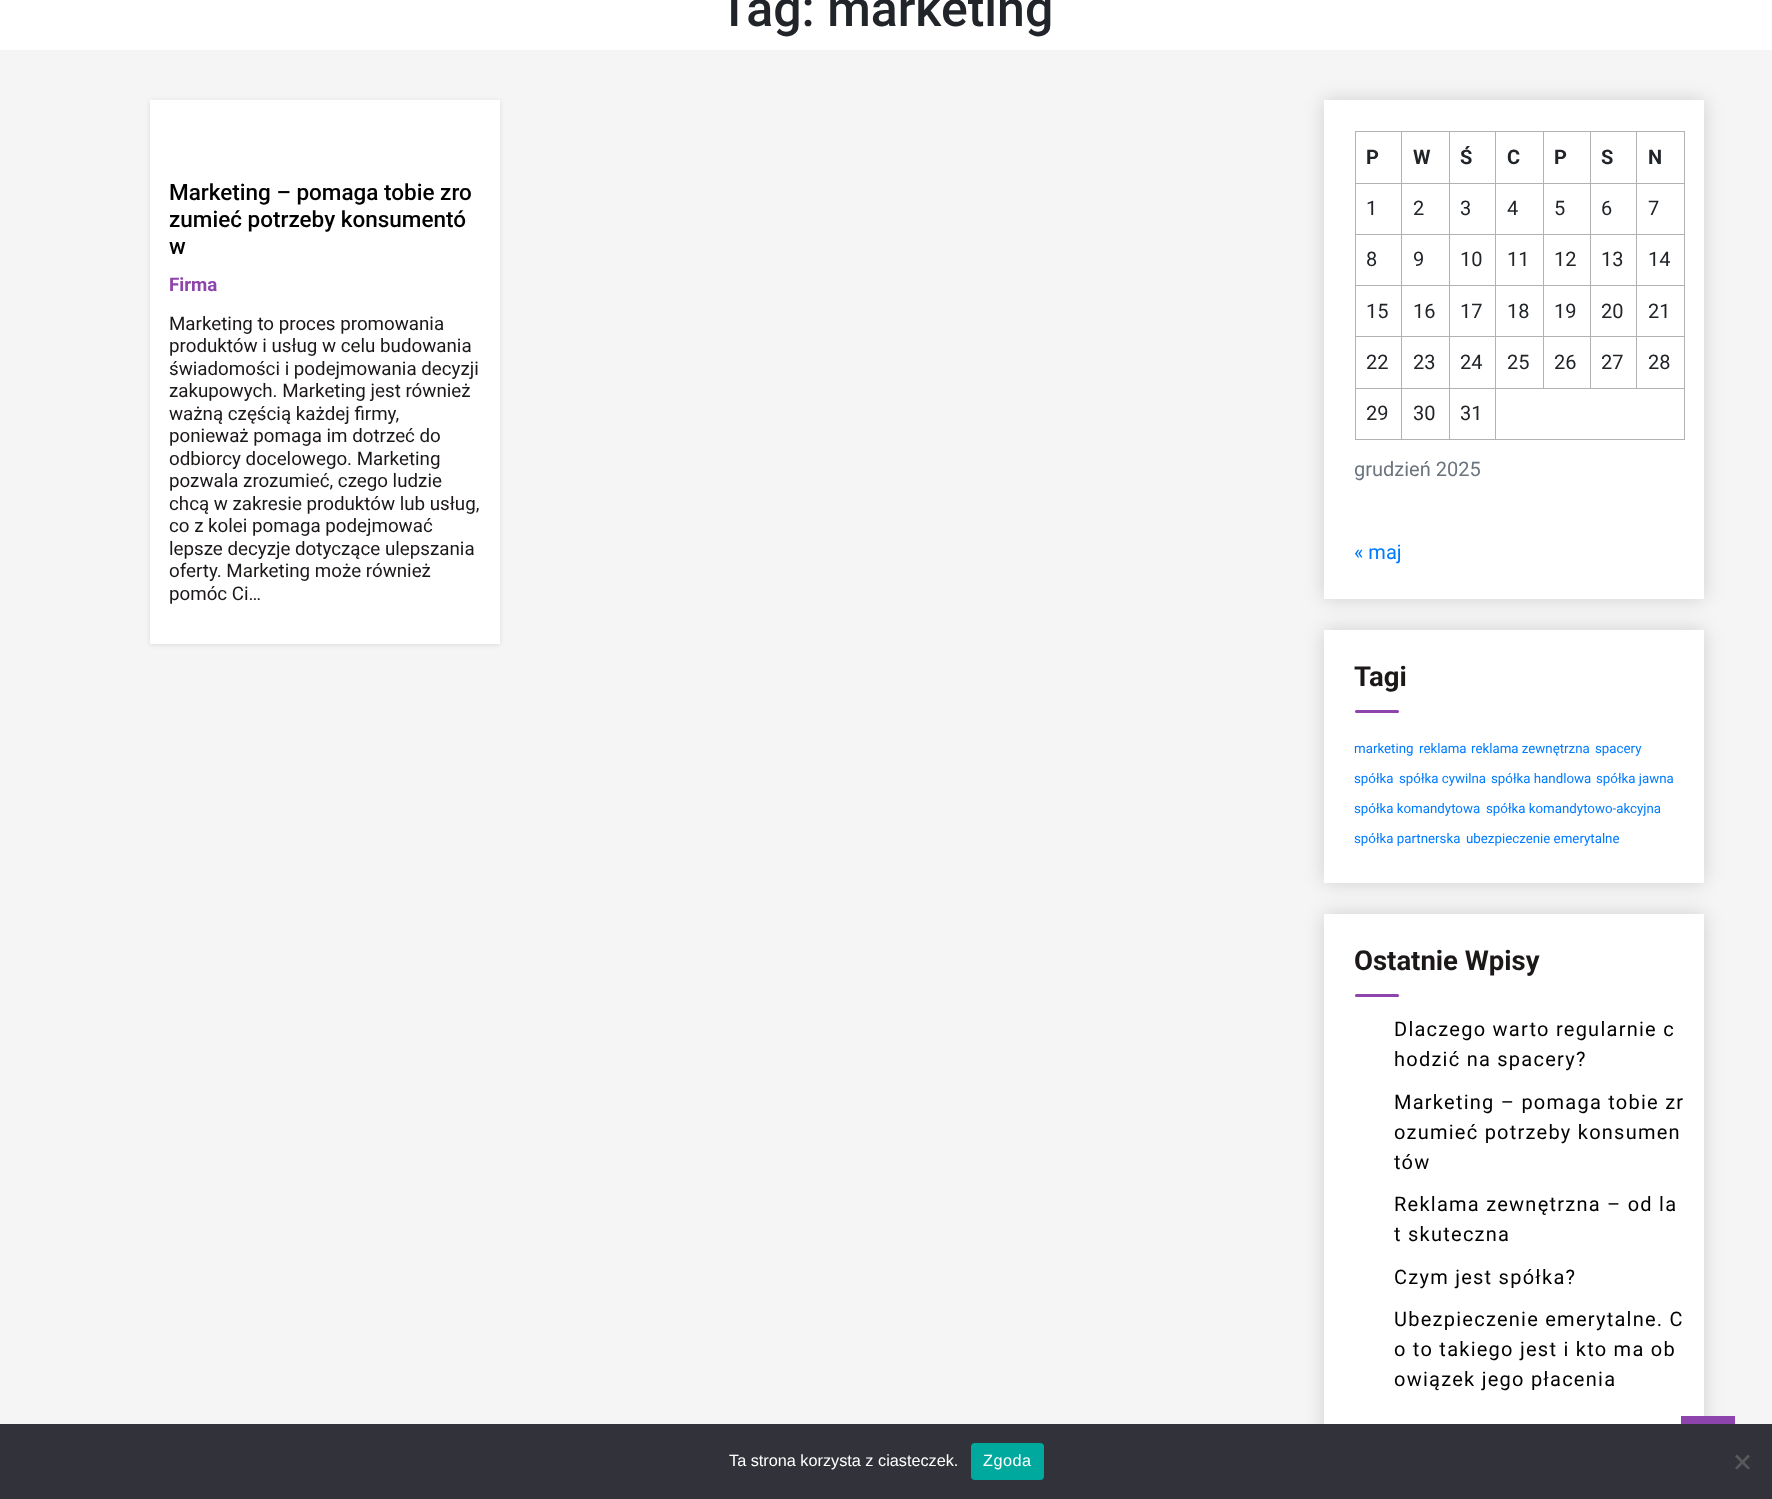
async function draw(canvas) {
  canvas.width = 1772;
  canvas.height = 1499;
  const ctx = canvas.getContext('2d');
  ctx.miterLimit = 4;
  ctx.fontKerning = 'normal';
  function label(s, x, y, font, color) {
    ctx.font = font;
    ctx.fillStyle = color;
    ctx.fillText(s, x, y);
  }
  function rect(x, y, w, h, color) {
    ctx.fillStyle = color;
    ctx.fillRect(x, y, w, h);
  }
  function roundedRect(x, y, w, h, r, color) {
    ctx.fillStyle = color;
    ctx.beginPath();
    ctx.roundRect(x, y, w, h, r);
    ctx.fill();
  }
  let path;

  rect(0, 0, 1772, 1499, '#fff');
  label('Tag: marketing', 719, 26, '500 50px Roboto', '#212529');
  rect(0, 50, 1772, 1374, '#f5f5f5');
  ctx.fillStyle = '#0000001a';
  ctx.filter = 'blur(2.5px)';
  ctx.beginPath();
  ctx.rect(150, 101, 350, 544);
  ctx.fill();
  ctx.filter = 'none';
  rect(150, 100, 350, 544, '#fff');
  label('Marketing – pomaga tobie zro', 169, 200, '500 22.5px Roboto', '#000');
  label('zumieć potrzeby konsumentó', 169, 227, '500 22.5px Roboto', '#000');
  label('w', 169, 254, '500 22.5px Roboto', '#000');
  label('Firma', 169, 291, 'bold 18.75px Roboto', '#8e44ad');
  label('Marketing to proces promowania', 169, 330, '18.75px Roboto', '#1c1818');
  label('produktów i usług w celu budowania', 169, 352, '18.75px Roboto', '#1c1818');
  label('świadomości i podejmowania decyzji', 169, 375, '18.75px Roboto', '#1c1818');
  label('zakupowych. Marketing jest również', 169, 397, '18.75px Roboto', '#1c1818');
  label('ważną częścią każdej firmy,', 169, 420, '18.75px Roboto', '#1c1818');
  label('ponieważ pomaga im dotrzeć do', 169, 442, '18.75px Roboto', '#1c1818');
  label('odbiorcy docelowego. Marketing', 169, 465, '18.75px Roboto', '#1c1818');
  label('pozwala zrozumieć, czego ludzie', 169, 487, '18.75px Roboto', '#1c1818');
  label('chcą w zakresie produktów lub usług,', 169, 510, '18.75px Roboto', '#1c1818');
  label('co z kolei pomaga podejmować', 169, 532, '18.75px Roboto', '#1c1818');
  label('lepsze decyzje dotyczące ulepszania', 169, 555, '18.75px Roboto', '#1c1818');
  label('oferty. Marketing może również', 169, 577, '18.75px Roboto', '#1c1818');
  label('pomóc Ci…', 169, 600, '18.75px Roboto', '#1c1818');
  ctx.fillStyle = '#00000026';
  ctx.filter = 'blur(9.5px)';
  ctx.beginPath();
  ctx.rect(1324, 100, 380, 499);
  ctx.fill();
  ctx.filter = 'none';
  rect(1324, 100, 380, 499, '#fff');
  rect(1636, 131, 49, 1, '#b3b2b2');
  rect(1636, 183, 49, 1, '#b3b2b2');
  rect(1636, 234, 49, 1, '#b3b2b2');
  rect(1636, 285, 49, 1, '#b3b2b2');
  rect(1636, 336, 49, 1, '#b3b2b2');
  rect(1495, 388, 190, 1, '#b3b2b2');
  rect(1636, 336, 1, 53, '#b3b2b2');
  rect(1590, 336, 48, 1, '#b3b2b2');
  rect(1636, 285, 1, 53, '#b3b2b2');
  rect(1590, 285, 48, 1, '#b3b2b2');
  rect(1636, 234, 1, 52, '#b3b2b2');
  rect(1590, 234, 48, 1, '#b3b2b2');
  rect(1636, 183, 1, 52, '#b3b2b2');
  rect(1590, 183, 48, 1, '#b3b2b2');
  rect(1636, 131, 1, 53, '#b3b2b2');
  rect(1590, 131, 48, 1, '#b3b2b2');
  rect(1590, 336, 1, 53, '#b3b2b2');
  rect(1543, 336, 48, 1, '#b3b2b2');
  rect(1590, 285, 1, 53, '#b3b2b2');
  rect(1543, 285, 48, 1, '#b3b2b2');
  rect(1590, 234, 1, 52, '#b3b2b2');
  rect(1543, 234, 48, 1, '#b3b2b2');
  rect(1590, 183, 1, 52, '#b3b2b2');
  rect(1543, 183, 48, 1, '#b3b2b2');
  rect(1590, 131, 1, 53, '#b3b2b2');
  rect(1543, 131, 48, 1, '#b3b2b2');
  rect(1543, 336, 1, 53, '#b3b2b2');
  rect(1495, 336, 49, 1, '#b3b2b2');
  rect(1543, 285, 1, 53, '#b3b2b2');
  rect(1495, 285, 49, 1, '#b3b2b2');
  rect(1543, 234, 1, 52, '#b3b2b2');
  rect(1495, 234, 49, 1, '#b3b2b2');
  rect(1543, 183, 1, 52, '#b3b2b2');
  rect(1495, 183, 49, 1, '#b3b2b2');
  rect(1543, 131, 1, 53, '#b3b2b2');
  rect(1495, 131, 49, 1, '#b3b2b2');
  rect(1684, 388, 1, 52, '#b3b2b2');
  rect(1495, 439, 190, 1, '#b3b2b2');
  rect(1495, 388, 1, 52, '#b3b2b2');
  rect(1449, 388, 47, 1, '#b3b2b2');
  rect(1495, 336, 1, 53, '#b3b2b2');
  rect(1449, 336, 47, 1, '#b3b2b2');
  rect(1495, 285, 1, 53, '#b3b2b2');
  rect(1449, 285, 47, 1, '#b3b2b2');
  rect(1495, 234, 1, 52, '#b3b2b2');
  rect(1449, 234, 47, 1, '#b3b2b2');
  rect(1495, 183, 1, 52, '#b3b2b2');
  rect(1449, 183, 47, 1, '#b3b2b2');
  rect(1495, 131, 1, 53, '#b3b2b2');
  rect(1449, 131, 47, 1, '#b3b2b2');
  rect(1449, 439, 47, 1, '#b3b2b2');
  rect(1449, 388, 1, 52, '#b3b2b2');
  rect(1401, 388, 49, 1, '#b3b2b2');
  rect(1449, 336, 1, 53, '#b3b2b2');
  rect(1401, 336, 49, 1, '#b3b2b2');
  rect(1449, 285, 1, 53, '#b3b2b2');
  rect(1401, 285, 49, 1, '#b3b2b2');
  rect(1449, 234, 1, 52, '#b3b2b2');
  rect(1401, 234, 49, 1, '#b3b2b2');
  rect(1449, 183, 1, 52, '#b3b2b2');
  rect(1401, 183, 49, 1, '#b3b2b2');
  rect(1449, 131, 1, 53, '#b3b2b2');
  rect(1401, 131, 49, 1, '#b3b2b2');
  rect(1401, 439, 49, 1, '#b3b2b2');
  rect(1401, 388, 1, 52, '#b3b2b2');
  rect(1355, 388, 48, 1, '#b3b2b2');
  rect(1401, 336, 1, 53, '#b3b2b2');
  rect(1355, 336, 48, 1, '#b3b2b2');
  rect(1401, 285, 1, 53, '#b3b2b2');
  rect(1355, 285, 48, 1, '#b3b2b2');
  rect(1401, 234, 1, 52, '#b3b2b2');
  rect(1355, 234, 48, 1, '#b3b2b2');
  rect(1401, 183, 1, 52, '#b3b2b2');
  rect(1355, 183, 48, 1, '#b3b2b2');
  rect(1401, 131, 1, 53, '#b3b2b2');
  rect(1355, 131, 48, 1, '#b3b2b2');
  rect(1355, 439, 48, 1, '#b3b2b2');
  rect(1355, 388, 1, 52, '#b3b2b2');
  rect(1355, 336, 1, 53, '#b3b2b2');
  rect(1355, 285, 1, 53, '#b3b2b2');
  rect(1355, 234, 1, 52, '#b3b2b2');
  rect(1355, 183, 1, 52, '#b3b2b2');
  rect(1355, 131, 1, 53, '#b3b2b2');
  label('P', 1366, 164, 'bold 20px Roboto', '#212529');
  label('W', 1413, 164, 'bold 20px Roboto', '#212529');
  label('Ś', 1460, 164, 'bold 20px Roboto', '#212529');
  label('C', 1507, 164, 'bold 20px Roboto', '#212529');
  label('P', 1554, 164, 'bold 20px Roboto', '#212529');
  label('S', 1601, 164, 'bold 20px Roboto', '#212529');
  rect(1684, 336, 1, 53, '#b3b2b2');
  rect(1684, 285, 1, 53, '#b3b2b2');
  rect(1684, 234, 1, 52, '#b3b2b2');
  rect(1684, 183, 1, 52, '#b3b2b2');
  rect(1684, 131, 1, 53, '#b3b2b2');
  label('N', 1648, 164, 'bold 20px Roboto', '#212529');
  label('1', 1366, 215, '20px Roboto', '#212529');
  label('2', 1413, 215, '20px Roboto', '#212529');
  label('3', 1460, 215, '20px Roboto', '#212529');
  label('4', 1507, 215, '20px Roboto', '#212529');
  label('5', 1554, 215, '20px Roboto', '#212529');
  label('6', 1601, 215, '20px Roboto', '#212529');
  label('7', 1648, 215, '20px Roboto', '#212529');
  label('8', 1366, 266, '20px Roboto', '#212529');
  label('9', 1413, 266, '20px Roboto', '#212529');
  label('10', 1460, 266, '20px Roboto', '#212529');
  label('11', 1507, 266, '20px Roboto', '#212529');
  label('12', 1554, 266, '20px Roboto', '#212529');
  label('13', 1601, 266, '20px Roboto', '#212529');
  label('14', 1648, 266, '20px Roboto', '#212529');
  label('15', 1366, 318, '20px Roboto', '#212529');
  label('16', 1413, 318, '20px Roboto', '#212529');
  label('17', 1460, 318, '20px Roboto', '#212529');
  label('18', 1507, 318, '20px Roboto', '#212529');
  label('19', 1554, 318, '20px Roboto', '#212529');
  label('20', 1601, 318, '20px Roboto', '#212529');
  label('21', 1648, 318, '20px Roboto', '#212529');
  label('22', 1366, 369, '20px Roboto', '#212529');
  label('23', 1413, 369, '20px Roboto', '#212529');
  label('24', 1460, 369, '20px Roboto', '#212529');
  label('25', 1507, 369, '20px Roboto', '#212529');
  label('26', 1554, 369, '20px Roboto', '#212529');
  label('27', 1601, 369, '20px Roboto', '#212529');
  label('28', 1648, 369, '20px Roboto', '#212529');
  label('29', 1366, 420, '20px Roboto', '#212529');
  label('30', 1413, 420, '20px Roboto', '#212529');
  label('31', 1460, 420, '20px Roboto', '#212529');
  label('grudzień 2025', 1354, 476, '20px Roboto', '#6c757d');
  label('« maj', 1354, 559, '20px Roboto', '#007bff');
  ctx.fillStyle = '#00000026';
  ctx.filter = 'blur(9.5px)';
  ctx.beginPath();
  ctx.rect(1324, 630, 380, 253);
  ctx.fill();
  ctx.filter = 'none';
  rect(1324, 630, 380, 253, '#fff');
  label('Tagi', 1354, 686, 'bold 27.5px Roboto', '#1c1818');
  roundedRect(1355, 710, 44, 3, 1.5, '#8e44ad');
  label('marketing', 1354, 753, '13.3px Roboto', '#007bff');
  label('reklama', 1419, 753, '13.3px Roboto', '#007bff');
  label('reklama zewnętrzna', 1471, 753, '13.3px Roboto', '#007bff');
  label('spacery', 1595, 753, '13.3px Roboto', '#007bff');
  label('spółka', 1354, 783, '13.3px Roboto', '#007bff');
  label('spółka cywilna', 1399, 783, '13.3px Roboto', '#007bff');
  label('spółka handlowa', 1491, 783, '13.3px Roboto', '#007bff');
  label('spółka jawna', 1596, 783, '13.3px Roboto', '#007bff');
  label('spółka komandytowa', 1354, 813, '13.3px Roboto', '#007bff');
  label('spółka komandytowo-akcyjna', 1486, 813, '13.3px Roboto', '#007bff');
  label('spółka partnerska', 1354, 843, '13.3px Roboto', '#007bff');
  label('ubezpieczenie emerytalne', 1466, 843, '13.3px Roboto', '#007bff');
  ctx.fillStyle = '#00000026';
  ctx.filter = 'blur(9.5px)';
  ctx.beginPath();
  ctx.rect(1324, 914, 380, 532);
  ctx.fill();
  ctx.filter = 'none';
  rect(1324, 914, 380, 510, '#fff');
  label('Ostatnie Wpisy', 1354, 970, 'bold 27.5px Roboto', '#1c1818');
  roundedRect(1355, 994, 44, 3, 1.5, '#8e44ad');
  ctx.letterSpacing = '1.25px';
  label('Dlaczego warto regularnie c', 1394, 1036, '20px Roboto', '#000');
  label('hodzić na spacery?', 1394, 1066, '20px Roboto', '#000');
  label('Marketing – pomaga tobie zr', 1394, 1109, '20px Roboto', '#000');
  label('ozumieć potrzeby konsumen', 1394, 1139, '20px Roboto', '#000');
  label('tów', 1394, 1169, '20px Roboto', '#000');
  label('Reklama zewnętrzna – od la', 1394, 1211, '20px Roboto', '#000');
  label('t skuteczna', 1394, 1241, '20px Roboto', '#000');
  label('Czym jest spółka?', 1394, 1284, '20px Roboto', '#000');
  label('Ubezpieczenie emerytalne. C', 1394, 1326, '20px Roboto', '#000');
  label('o to takiego jest i kto ma ob', 1394, 1356, '20px Roboto', '#000');
  label('owiązek jego płacenia', 1394, 1386, '20px Roboto', '#000');
  rect(1681, 1416, 54, 8, '#8e44ad');
  rect(0, 1424, 1772, 75, '#32323a');
  ctx.letterSpacing = '0px';
  label('Ta strona korzysta z ciasteczek.', 729, 1466, '16.25px Liberation Sans', '#fff');
  roundedRect(971, 1443, 73, 37, 4, '#00a99d');
  ctx.letterSpacing = '0.5px';
  label('Zgoda', 983, 1466, '16.25px Liberation Sans', '#fff');
  ctx.fillStyle = '#59595d';
  path = new Path2D('M1748 1454.5L1750 1456.5L1737 1469.5L1735 1468Z');
  ctx.fill(path);
  path = new Path2D('M1735 1456.5L1737 1454.5L1750 1468L1748 1469.5Z');
  ctx.fill(path);
}

draw(document.querySelector('canvas'));
